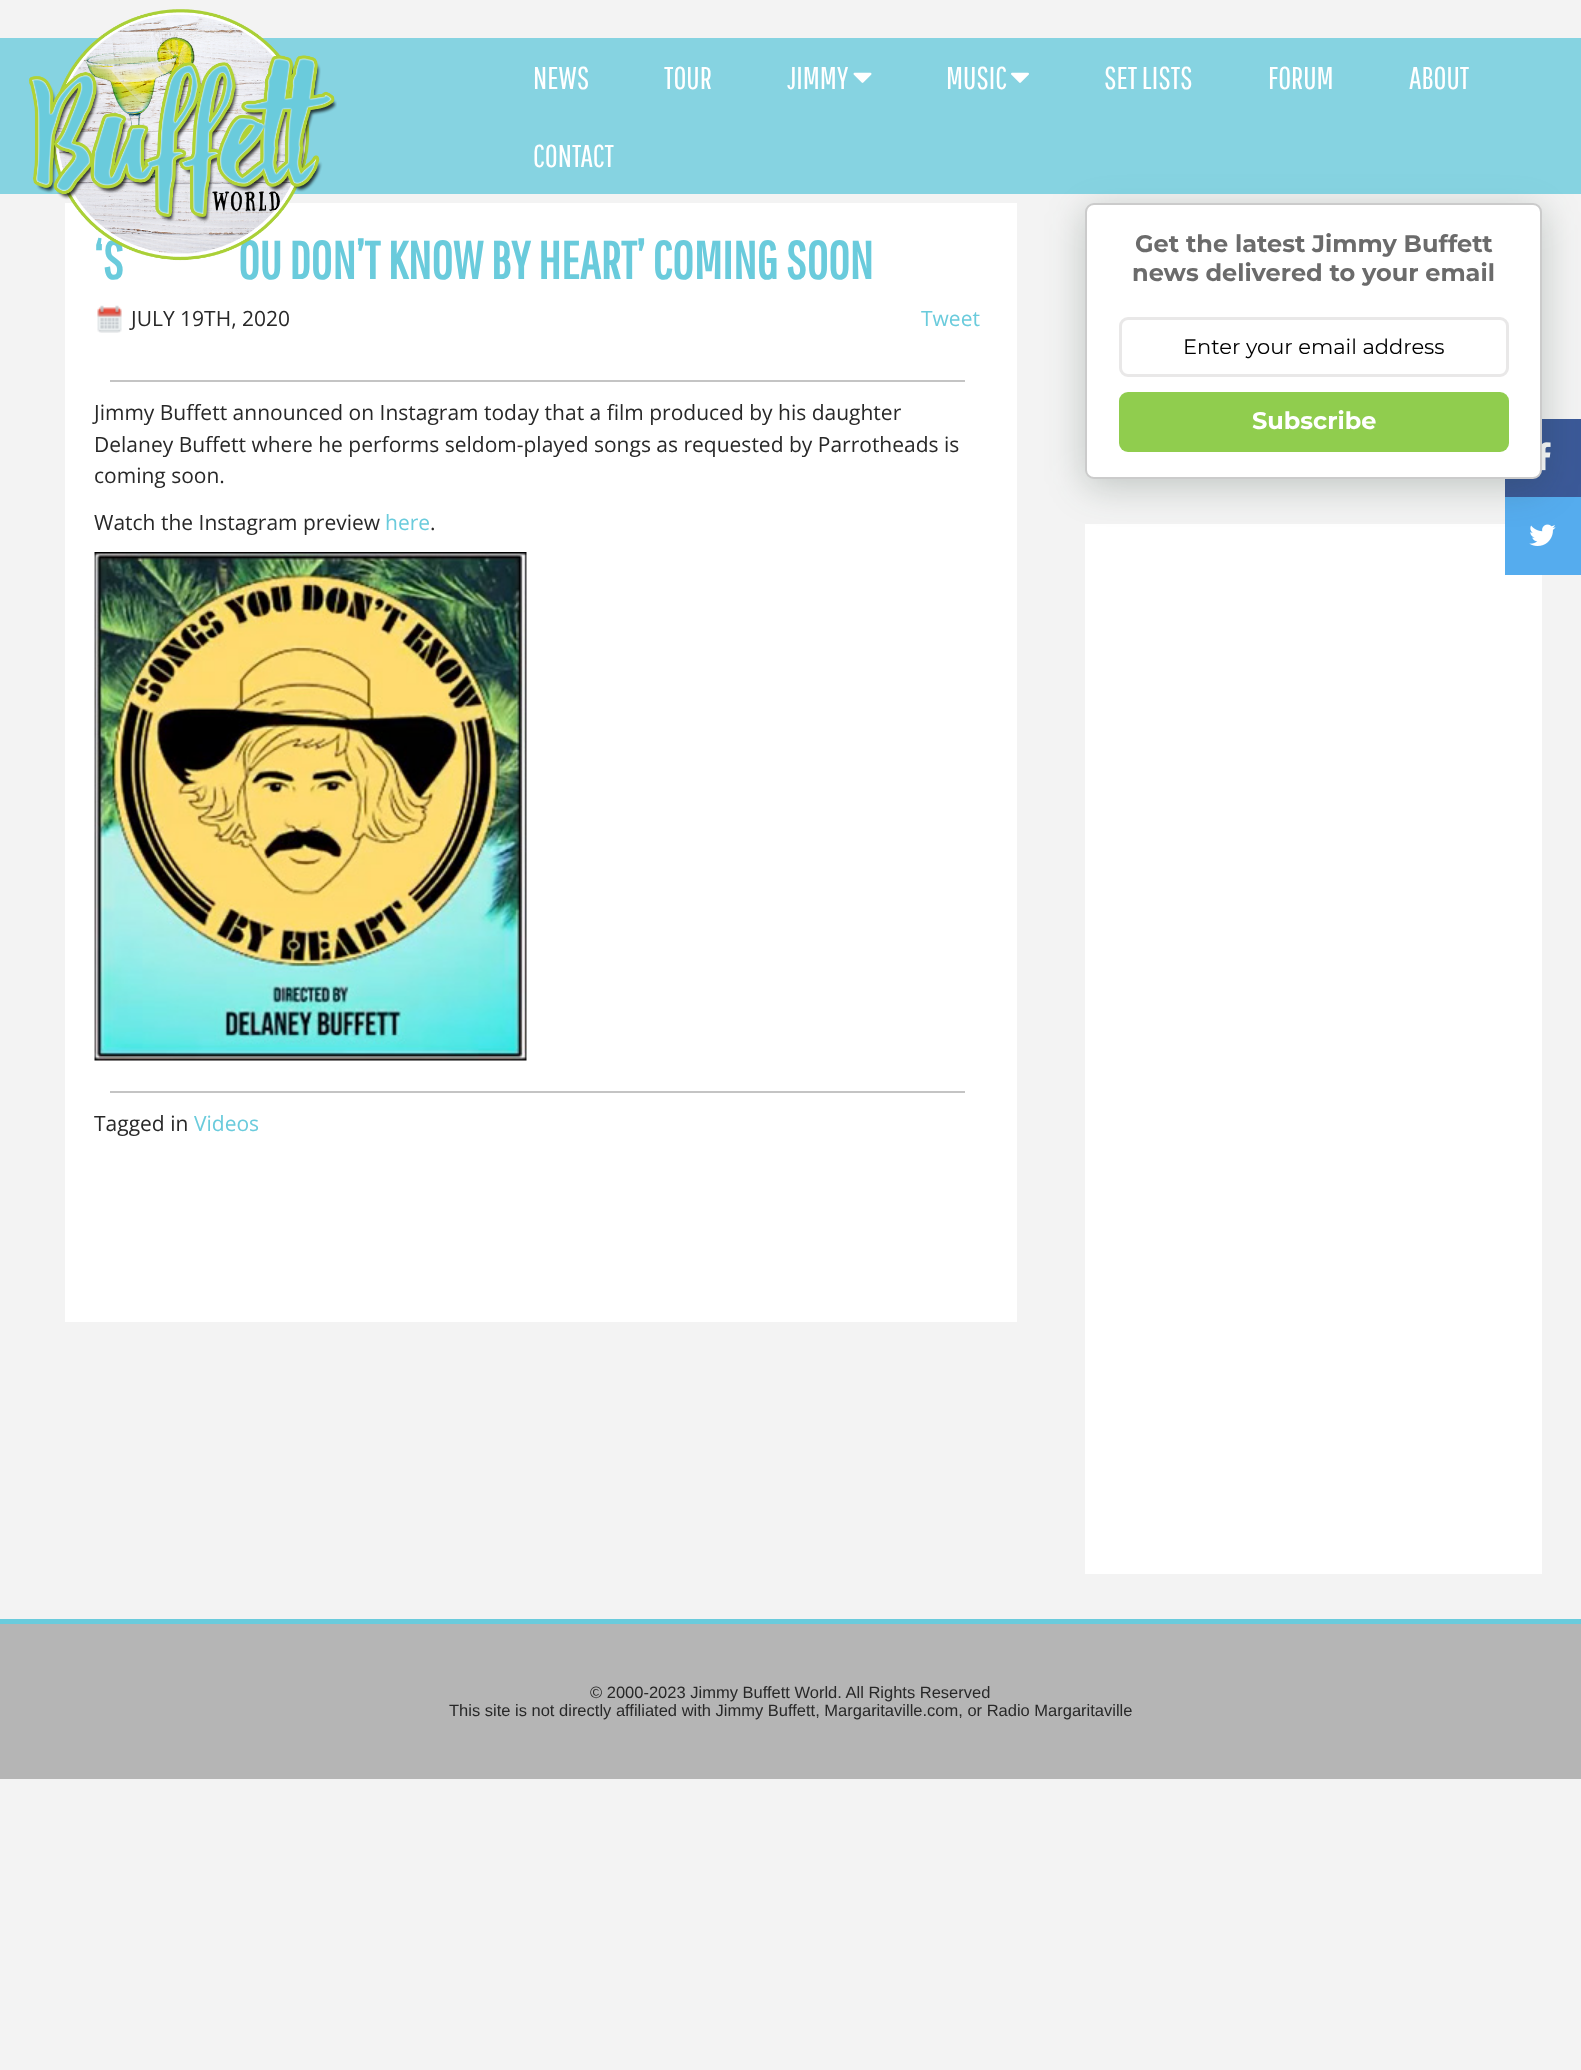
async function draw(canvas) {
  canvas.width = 1581;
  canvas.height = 2070;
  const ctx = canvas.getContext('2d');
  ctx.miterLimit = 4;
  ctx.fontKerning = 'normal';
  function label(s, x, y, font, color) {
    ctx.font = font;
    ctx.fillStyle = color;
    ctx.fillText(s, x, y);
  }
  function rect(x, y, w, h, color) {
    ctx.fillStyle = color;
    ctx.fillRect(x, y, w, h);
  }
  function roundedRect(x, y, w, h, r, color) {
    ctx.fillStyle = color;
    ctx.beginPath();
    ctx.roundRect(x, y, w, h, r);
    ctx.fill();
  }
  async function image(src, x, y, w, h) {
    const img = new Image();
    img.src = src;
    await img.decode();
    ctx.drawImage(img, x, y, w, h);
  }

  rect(0, 0, 1581, 2070, '#f3f3f3');
  rect(1085, 524, 457, 1050, '#fff');
  rect(1505, 419, 76, 78, '#3b5998');
  await image('assets/img6.png', 1541, 442, 10, 29);
  rect(1505, 497, 76, 78, '#55acee');
  await image('assets/img7.png', 1529, 524, 27, 22);
  ctx.fillStyle = '#223c2f40';
  ctx.filter = 'blur(19px)';
  ctx.beginPath();
  ctx.roundRect(1085, 210, 457, 276, 9);
  ctx.fill();
  ctx.filter = 'none';
  rect(0, 38, 1581, 156, '#6acbdccc');
  rect(65, 203, 952, 1119, '#fff');
  label('‘S', 94, 279, 'bold 52.5px Pathway Gothic One', '#6acbdc');
  label('OU DON’T KNOW BY HEART’ COMING SOON', 238, 279, 'bold 52.5px Pathway Gothic One', '#6acbdc');
  await image('assets/img1.png', 29, 9, 308, 252);
  label('NEWS', 533, 89, '31.5px Pathway Gothic One', '#fff');
  label('TOUR', 664, 89, '31.5px Pathway Gothic One', '#fff');
  label('JIMMY', 787, 89, '31.5px Pathway Gothic One', '#fff');
  await image('assets/img2.png', 853, 72, 19, 11);
  label('MUSIC', 946, 89, '31.5px Pathway Gothic One', '#fff');
  await image('assets/img3.png', 1011, 72, 18, 11);
  label('SET LISTS', 1104, 89, '31.5px Pathway Gothic One', '#fff');
  label('FORUM', 1268, 89, '31.5px Pathway Gothic One', '#fff');
  label('ABOUT', 1409, 89, '31.5px Pathway Gothic One', '#fff');
  label('CONTACT', 533, 167, '31.5px Pathway Gothic One', '#fff');
  await image('assets/img4.png', 97, 305, 25, 28);
  label('JULY 19TH, 2020', 131, 326, '21px Open Sans', '#282828');
  label('Tweet', 921, 326, '21px Open Sans', '#6acbdc');
  rect(110, 380, 855, 2, '#c4c4c4');
  label('Jimmy Buffett announced on Instagram today that a film produced by his daughter', 94, 420, '21px Open Sans', '#282828');
  label('Delaney Buffett where he performs seldom-played songs as requested by Parrotheads is', 94, 452, '21px Open Sans', '#282828');
  label('coming soon.', 94, 483, '21px Open Sans', '#282828');
  label('Watch the Instagram preview', 94, 530, '21px Open Sans', '#282828');
  label('here', 385, 530, '21px Open Sans', '#6acbdc');
  label('.', 430, 530, '21px Open Sans', '#282828');
  await image('assets/img5.png', 94, 552, 433, 509);
  rect(110, 1091, 855, 2, '#c4c4c4');
  label('Tagged in', 94, 1131, '21px Open Sans', '#282828');
  label('Videos', 194, 1131, '21px Open Sans', '#6acbdc');
  ctx.fillStyle = '#fff';
  ctx.beginPath();
  ctx.roundRect(1086, 204, 455, 274, 8);
  ctx.fill();
  ctx.strokeStyle = '#cbcbcb';
  ctx.lineWidth = 2;
  ctx.stroke();
  label('Get the latest Jimmy Buffett', 1135, 252, '100 24px Montserrat', '#6b6b6b');
  label('news delivered to your email', 1132, 281, '100 24px Montserrat', '#6b6b6b');
  ctx.beginPath();
  ctx.roundRect(1120.5, 318.5, 387, 57, 7.5);
  ctx.strokeStyle = '#e9e8e8';
  ctx.lineWidth = 3;
  ctx.stroke();
  label('Enter your email address', 1183, 354, '100 21px "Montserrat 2"', '#000');
  roundedRect(1119, 392, 390, 60, 9, '#90cd4e');
  label('Subscribe', 1252, 429, '100 24px Montserrat', '#fff');
  rect(0, 1624, 1581, 155, '#b5b5b5');
  rect(0, 1619, 1581, 5, '#6acbdc');
  label('© 2000-2023 Jimmy Buffett World. All Rights Reserved', 590, 1698, '16.5px Liberation Sans', '#282828');
  label('This site is not directly affiliated with Jimmy Buffett, Margaritaville.com, or Radio Margaritaville', 449, 1716, '16.5px Liberation Sans', '#282828');
}

draw(document.querySelector('canvas'));
